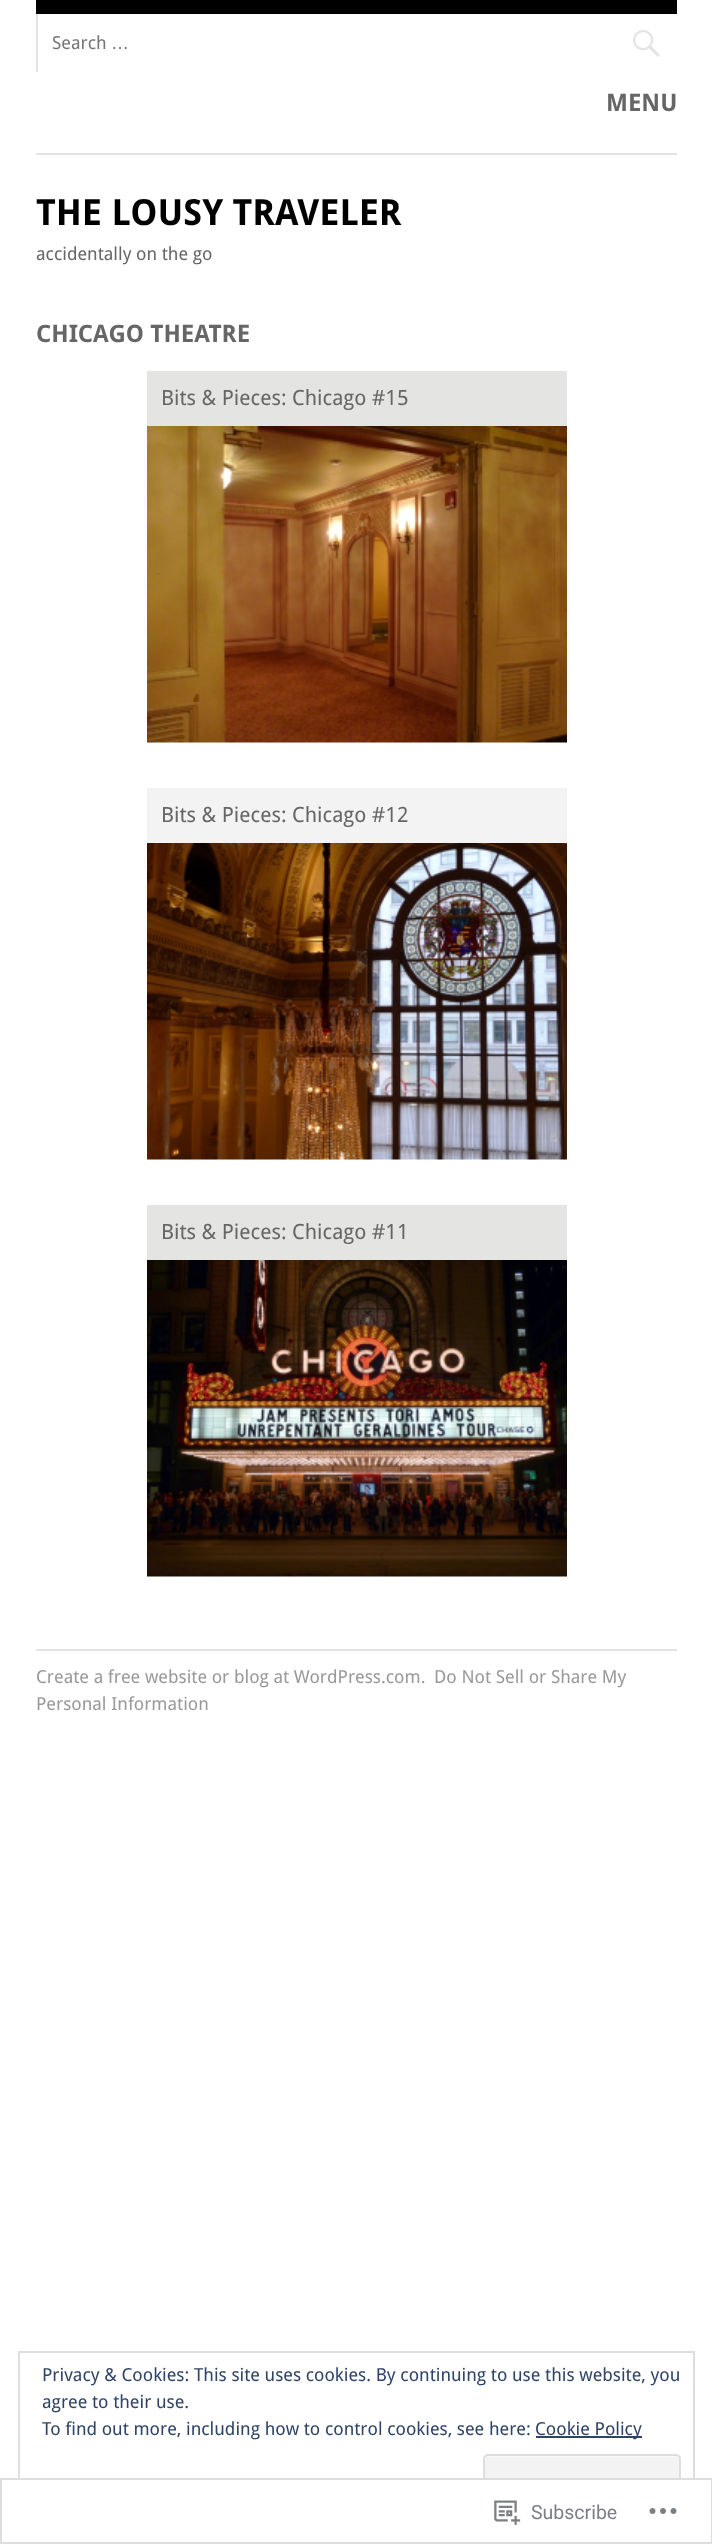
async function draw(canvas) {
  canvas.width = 712;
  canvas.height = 2544;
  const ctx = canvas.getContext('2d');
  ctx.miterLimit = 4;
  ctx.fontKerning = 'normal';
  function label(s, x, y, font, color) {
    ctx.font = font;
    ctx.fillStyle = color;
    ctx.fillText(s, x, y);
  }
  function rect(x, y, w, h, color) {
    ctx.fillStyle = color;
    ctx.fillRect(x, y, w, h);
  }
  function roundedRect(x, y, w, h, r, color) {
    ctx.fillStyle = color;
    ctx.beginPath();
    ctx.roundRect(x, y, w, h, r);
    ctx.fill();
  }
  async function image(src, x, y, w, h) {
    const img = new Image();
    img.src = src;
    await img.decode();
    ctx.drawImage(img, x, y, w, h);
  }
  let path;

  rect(0, 0, 712, 2544, '#fff');
  rect(36, 0, 641, 14, '#000');
  rect(36, 153, 641, 2, '#e4e4e2');
  rect(36, 14, 2, 58, '#e4e4e2');
  label('Search', 52, 49, '18px Droid Sans', '#757575');
  label('…', 111, 49, '18px Liberation Sans', '#757575');
  await image('assets/img1.png', 633, 30, 27, 27);
  label('MENU', 606, 111, 'bold 24px Droid Sans', '#666');
  label('THE LOUSY TRAVELER', 36, 225, 'bold 36px Droid Sans', '#000');
  label('accidentally on the go', 36, 260, '18px Droid Sans', '#666');
  label('CHICAGO THEATRE', 36, 342, 'bold 24px Droid Sans', '#666');
  rect(147, 371, 420, 55, '#e4e4e2');
  label('Bits & Pieces: Chicago #15', 161, 405, '21px Droid Sans', '#666');
  await image('assets/img2.png', 147, 426, 420, 317);
  rect(147, 788, 420, 55, '#f3f3f3');
  label('Bits & Pieces: Chicago #12', 161, 822, '21px Droid Sans', '#666');
  await image('assets/img3.png', 147, 843, 420, 317);
  rect(147, 1205, 420, 55, '#e4e4e2');
  label('Bits & Pieces: Chicago #11', 161, 1239, '21px Droid Sans', '#666');
  await image('assets/img4.png', 147, 1260, 420, 317);
  rect(36, 1649, 641, 2, '#e4e4e2');
  label('Create a free website or blog at WordPress.com.', 36, 1683, '18px Droid Sans', '#999');
  label('Do Not Sell or Share My', 434, 1683, '18px Droid Sans', '#999');
  label('Personal Information', 36, 1710, '18px Droid Sans', '#999');
  ctx.strokeStyle = '#dedede';
  ctx.lineWidth = 2;
  ctx.strokeRect(19, 2352, 675, 173);
  label('Privacy & Cookies: This site uses cookies. By continuing to use this website, you', 42, 2381, '18px Droid Sans', '#2e4467');
  label('agree to their use.', 42, 2408, '18px Droid Sans', '#2e4467');
  label('To find out more, including how to control cookies, see here:', 42, 2435, '18px Droid Sans', '#2e4467');
  rect(536, 2436, 106, 2, '#2e4467');
  label('Cookie Policy', 535, 2435, '18px Droid Sans', '#2e4467');
  roundedRect(483, 2454, 198, 59, 5, '#f3f3f3');
  ctx.fillStyle = '#f9f9f9';
  path = new Path2D('M488 2457H676C678 2457 680 2458 680 2460V2459C680 2457 679 2456 677 2456H488C487 2456 486 2457 485 2458Z');
  ctx.fill(path);
  ctx.beginPath();
  ctx.roundRect(484, 2455, 196, 57, 4);
  ctx.stroke();
  rect(18, 2478, 677, 48, '#fffffffa');
  ctx.strokeStyle = '#dcdcdefa';
  ctx.strokeRect(1, 2479, 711, 64);
  await image('assets/img5.png', 494, 2500, 27, 25);
  label('Subscribe', 531, 2519, '19.5px Roboto', '#7b7f84');
  await image('assets/img6.png', 649, 2508, 28, 6);
}

draw(document.querySelector('canvas'));
